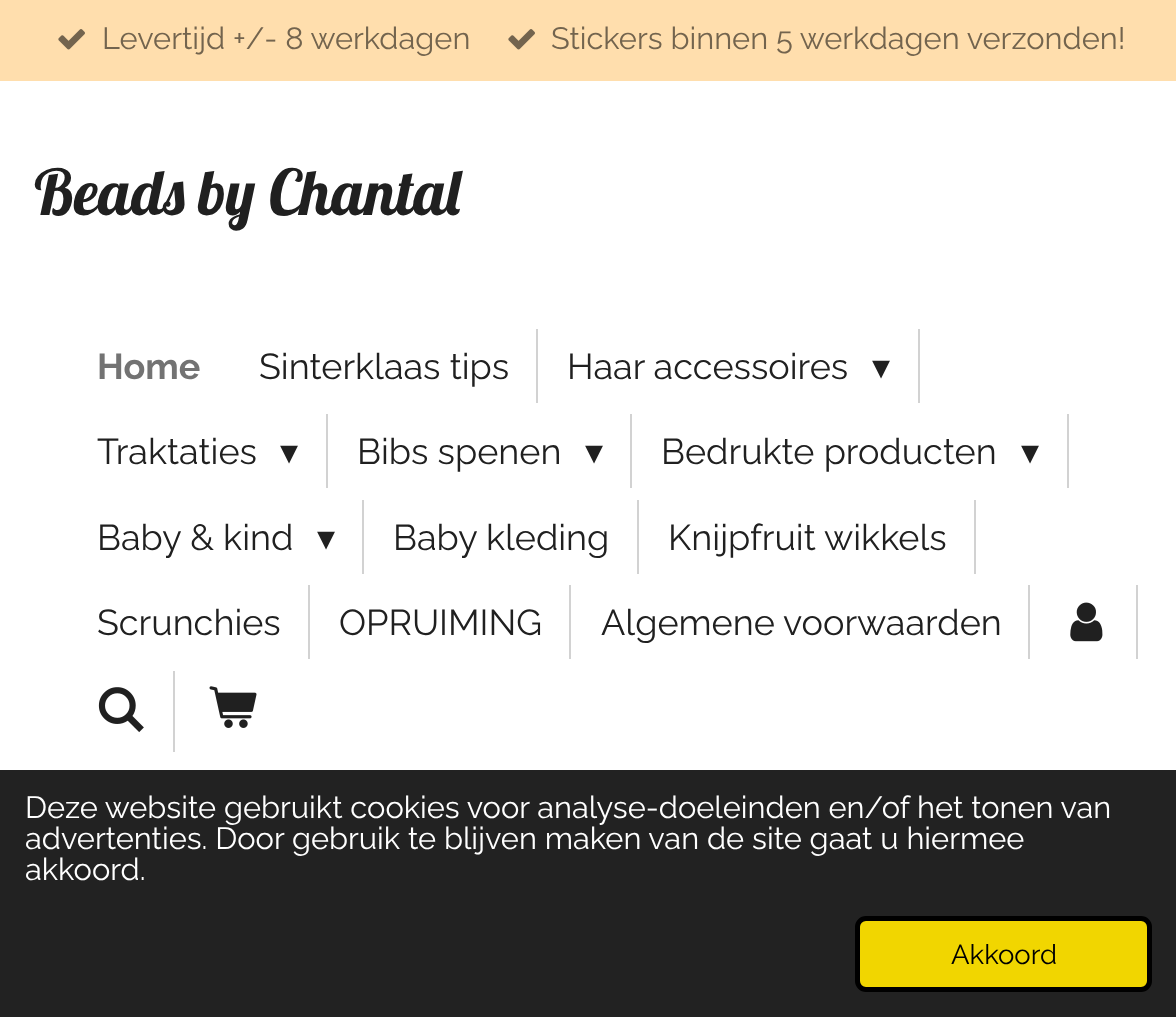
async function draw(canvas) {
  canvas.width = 1176;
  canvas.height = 1017;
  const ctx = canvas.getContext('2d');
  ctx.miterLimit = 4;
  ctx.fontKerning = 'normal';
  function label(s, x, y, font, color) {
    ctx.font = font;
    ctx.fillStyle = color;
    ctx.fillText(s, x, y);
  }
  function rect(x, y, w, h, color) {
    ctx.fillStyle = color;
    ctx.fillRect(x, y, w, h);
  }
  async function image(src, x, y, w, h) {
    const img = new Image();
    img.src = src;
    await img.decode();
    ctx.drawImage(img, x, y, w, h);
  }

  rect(0, 0, 1176, 1017, '#fff');
  rect(0, 0, 1176, 81, '#ffdead');
  await image('assets/img1.png', 58, 29, 27, 21);
  label('Levertijd +/- 8 werkdagen', 102, 49, '30.8px Raleway', '#73644e');
  await image('assets/img1.png', 508, 29, 27, 21);
  label('Stickers binnen 5 werkdagen verzonden!', 551, 49, '30.8px Raleway', '#73644e');
  label('Beads by Chantal', 34, 215, '63px Lobster', '#202020');
  label('Home', 97, 379, 'bold 36px Raleway', '#737373');
  label('Sinterklaas tips', 259, 379, '36px Raleway', '#202020');
  rect(536, 329, 2, 74, '#d2d2d2');
  label('Haar accessoires', 567, 379, '36px Raleway', '#202020');
  label('▾', 872, 379, '36px DejaVu Sans', '#202020');
  rect(918, 329, 2, 74, '#d2d2d2');
  label('Traktaties', 97, 464, '36px Raleway', '#202020');
  label('▾', 280, 464, '36px DejaVu Sans', '#202020');
  rect(326, 414, 2, 74, '#d2d2d2');
  label('Bibs spenen', 357, 464, '36px Raleway', '#202020');
  label('▾', 585, 464, '36px DejaVu Sans', '#202020');
  rect(630, 414, 2, 74, '#d2d2d2');
  label('Bedrukte producten', 661, 464, '36px Raleway', '#202020');
  label('▾', 1021, 464, '36px DejaVu Sans', '#202020');
  rect(1067, 414, 2, 74, '#d2d2d2');
  label('Baby & kind', 97, 550, '36px Raleway', '#202020');
  label('▾', 317, 550, '36px DejaVu Sans', '#202020');
  rect(362, 500, 2, 74, '#d2d2d2');
  label('Baby kleding', 393, 550, '36px Raleway', '#202020');
  rect(637, 500, 2, 74, '#d2d2d2');
  label('Knijpfruit wikkels', 668, 550, '36px Raleway', '#202020');
  rect(974, 500, 2, 74, '#d2d2d2');
  label('Scrunchies', 97, 635, '36px Raleway', '#202020');
  rect(308, 585, 2, 74, '#d2d2d2');
  label('OPRUIMING', 339, 635, '36px Raleway', '#202020');
  rect(569, 585, 2, 74, '#d2d2d2');
  label('Algemene voorwaarden', 601, 635, '36px Raleway', '#202020');
  rect(1028, 585, 2, 74, '#d2d2d2');
  await image('assets/img2.png', 1070, 602, 33, 40);
  rect(1136, 585, 2, 74, '#d2d2d2');
  await image('assets/img3.png', 98, 687, 46, 46);
  rect(173, 671, 2, 81, '#d2d2d2');
  await image('assets/img4.png', 209, 686, 48, 42);
  rect(0, 770, 1176, 247, '#222');
  label('Deze website gebruikt cookies voor analyse-doeleinden en/of het tonen van', 25, 818, '30.8px Raleway', '#fff');
  label('advertenties. Door gebruik te blijven maken van de site gaat u hiermee', 25, 849, '30.8px Raleway', '#fff');
  label('akkoord.', 25, 880, '30.8px Raleway', '#fff');
  ctx.fillStyle = '#f1d600';
  ctx.beginPath();
  ctx.roundRect(857.5, 918.5, 292, 71, 8.5);
  ctx.fill();
  ctx.strokeStyle = '#000';
  ctx.lineWidth = 5;
  ctx.stroke();
  label('Akkoord', 951, 964, '27.5px Raleway', '#000');
}

draw(document.querySelector('canvas'));
